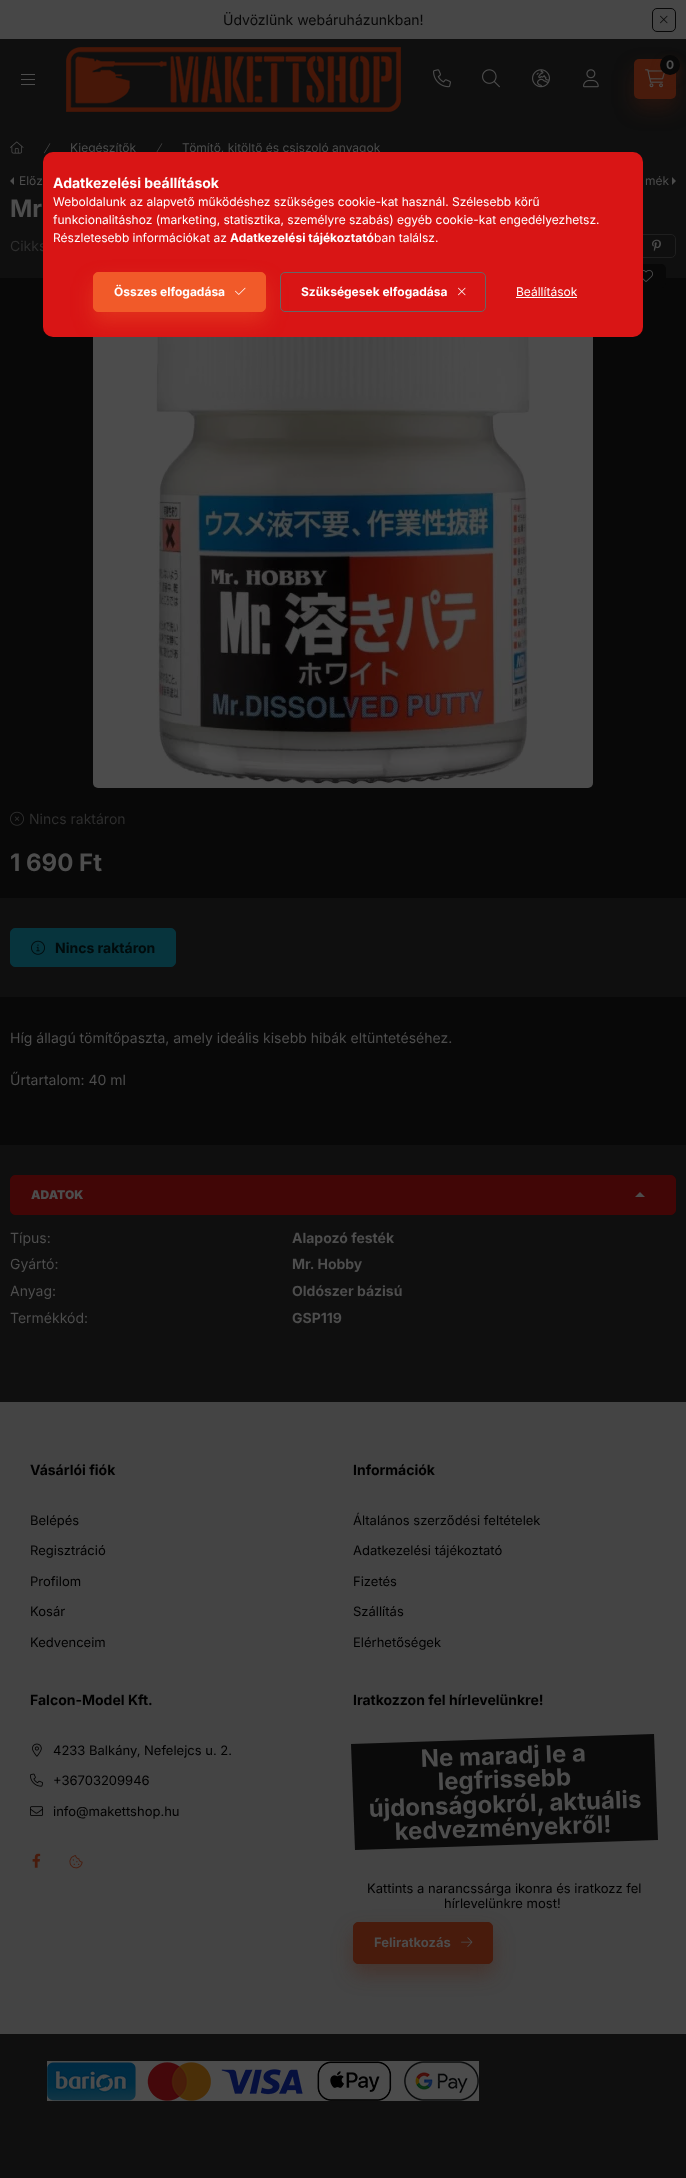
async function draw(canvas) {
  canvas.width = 686;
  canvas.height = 2178;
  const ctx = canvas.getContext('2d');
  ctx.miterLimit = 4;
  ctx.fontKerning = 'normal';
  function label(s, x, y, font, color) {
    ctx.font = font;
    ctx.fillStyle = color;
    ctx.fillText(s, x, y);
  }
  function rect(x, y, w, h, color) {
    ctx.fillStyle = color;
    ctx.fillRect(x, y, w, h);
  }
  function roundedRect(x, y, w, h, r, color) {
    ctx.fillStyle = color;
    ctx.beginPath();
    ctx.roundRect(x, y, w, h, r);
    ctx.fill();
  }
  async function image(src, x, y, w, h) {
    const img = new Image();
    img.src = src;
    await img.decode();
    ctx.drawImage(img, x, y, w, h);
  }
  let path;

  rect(0, 0, 686, 2178, '#0f0f0f');
  ctx.fillStyle = '#481b0c66';
  ctx.filter = 'blur(10px)';
  ctx.beginPath();
  ctx.roundRect(634, 69, 42, 40, 5);
  ctx.fill();
  ctx.filter = 'none';
  rect(0, 0, 686, 39, '#474747');
  label('Üdvözlünk webáruházunkban!', 223, 25, '14px Inter', '#080808');
  ctx.beginPath();
  ctx.roundRect(652.5, 8.5, 23, 23, 4.5);
  ctx.strokeStyle = '#080808';
  ctx.stroke();
  await image('assets/img1.png', 660, 15, 8, 9);
  rect(21, 74, 14, 1, '#4d4d4d');
  rect(21, 79, 14, 1, '#4d4d4d');
  rect(21, 84, 14, 1, '#4d4d4d');
  await image('assets/img2.png', 66, 47, 335, 65);
  await image('assets/img3.png', 433, 69, 18, 19);
  roundedRect(634, 59, 42, 40, 5, '#481b0c');
  await image('assets/img4.png', 645, 69, 20, 19);
  ctx.fillStyle = '#481b0c66';
  ctx.filter = 'blur(5px)';
  ctx.beginPath();
  ctx.roundRect(660, 60, 20, 20, 10);
  ctx.fill();
  ctx.filter = 'none';
  ctx.fillStyle = '#080808';
  ctx.beginPath();
  ctx.arc(670, 65, 10, 0, 2 * Math.PI);
  ctx.fill();
  label('0', 666, 69, 'bold 12px Inter', '#4d4d4d');
  await image('assets/img5.png', 482, 69, 18, 19);
  await image('assets/img6.png', 532, 69, 18, 19);
  await image('assets/img7.png', 583, 69, 16, 19);
  await image('assets/img8.png', 10, 141, 14, 13);
  await image('assets/img9.png', 44, 143, 7, 11);
  label('Kiegészítők', 70, 152, '12px Inter', '#4d4d4d');
  await image('assets/img10.png', 156, 143, 7, 9);
  label('Tömítő, kitöltő és csiszoló anyagok', 182, 152, '12px Inter', '#4d4d4d');
  path = new Path2D('M14 185V177L10 181Z');
  ctx.fill(path);
  label('Előz', 19, 185, '12px Inter', '#4d4d4d');
  label('mék', 645, 185, '12px Inter', '#4d4d4d');
  path = new Path2D('M672 185V177L676 181Z');
  ctx.fill(path);
  label('Mr', 10, 217, 'bold 24px Inter', '#4d4d4d');
  label('Cikks', 10, 251, '14px Inter', '#2e2e2e');
  ctx.beginPath();
  ctx.roundRect(636.5, 234.5, 39, 23, 4.5);
  ctx.strokeStyle = '#1f1f1f';
  ctx.stroke();
  await image('assets/img11.png', 652, 239, 9, 13);
  rect(0, 278, 686, 867, '#080808');
  roundedRect(626, 264, 40, 24, 5, '#080808');
  await image('assets/img12.png', 643, 269, 10, 13);
  await image('assets/img13.png', 93, 337, 500, 451);
  await image('assets/img14.png', 10, 811, 14, 15);
  label('Nincs raktáron', 29, 824, '14px Inter', '#2e2e2e');
  label('1 690 Ft', 10, 871, 'bold 24px Inter', '#4d4d4d');
  rect(0, 898, 686, 99, '#0f0f0f');
  ctx.fillStyle = '#07343d';
  ctx.beginPath();
  ctx.roundRect(10.5, 928.5, 165, 38, 4.5);
  ctx.fill();
  ctx.strokeStyle = '#07343d';
  ctx.stroke();
  await image('assets/img15.png', 31, 940, 14, 15);
  label('Nincs raktáron', 55, 953, 'bold 14px Inter', '#010b0c');
  label('Híg állagú tömítőpaszta, amely ideális kisebb hibák eltüntetéséhez.', 10, 1043, '14px Inter', '#4d4d4d');
  label('Űrtartalom: 40 ml', 10, 1085, '14px Inter', '#4d4d4d');
  ctx.fillStyle = '#410606';
  ctx.beginPath();
  ctx.roundRect(10.5, 1175.5, 665, 39, 4.5);
  ctx.fill();
  ctx.strokeStyle = '#410606';
  ctx.stroke();
  label('ADATOK', 31, 1199, '900 12px Inter', '#4d4d4d');
  path = new Path2D('M635 1197H645L640 1192Z');
  ctx.fill(path);
  label('Típus:', 10, 1243, '14px Inter', '#4d4d4d');
  label('Alapozó festék', 292, 1243, 'bold 14px Inter', '#4d4d4d');
  label('Gyártó:', 10, 1269, '14px Inter', '#4d4d4d');
  label('Mr. Hobby', 292, 1269, 'bold 14px Inter', '#4d4d4d');
  label('Anyag:', 10, 1296, '14px Inter', '#4d4d4d');
  label('Oldószer bázisú', 292, 1296, 'bold 14px Inter', '#4d4d4d');
  label('Termékkód:', 10, 1323, '14px Inter', '#4d4d4d');
  label('GSP119', 292, 1323, 'bold 14px Inter', '#4d4d4d');
  rect(0, 1402, 686, 632, '#444');
  label('Vásárlói fiók', 30, 1475, 'bold 14px Inter', '#000');
  label('Belépés', 30, 1525, '13px Inter', '#000');
  label('Regisztráció', 30, 1555, '13px Inter', '#000');
  label('Profilom', 30, 1586, '13px Inter', '#000');
  label('Kosár', 30, 1616, '13px Inter', '#000');
  label('Kedvenceim', 30, 1647, '13px Inter', '#000');
  label('Információk', 353, 1475, 'bold 14px Inter', '#000');
  label('Általános szerződési feltételek', 353, 1525, '13px Inter', '#000');
  label('Adatkezelési tájékoztató', 353, 1555, '13px Inter', '#000');
  label('Fizetés', 353, 1586, '13px Inter', '#000');
  label('Szállítás', 353, 1616, '13px Inter', '#000');
  label('Elérhetőségek', 353, 1647, '13px Inter', '#000');
  label('Falcon-Model Kft.', 30, 1705, 'bold 14px Inter', '#000');
  await image('assets/img16.png', 32, 1743, 10, 14);
  label('4233 Balkány, Nefelejcs u. 2.', 53, 1755, '13px Inter', '#000');
  await image('assets/img17.png', 30, 1773, 13, 14);
  label('+36703209946', 53, 1785, '13px Inter', '#000');
  await image('assets/img18.png', 30, 1806, 13, 10);
  label('info@makettshop.hu', 53, 1816, '13px Inter', '#000');
  await image('assets/img19.png', 32, 1853, 9, 15);
  await image('assets/img20.png', 69, 1855, 14, 14);
  label('Iratkozzon fel hírlevelünkre!', 353, 1705, 'bold 14px Inter', '#000');
  ctx.fillStyle = '#0a0a0a';
  path = new Path2D('M351 1744L654 1734L658 1840L355 1850Z');
  ctx.fill(path);
  ctx.font = 'bold 24px Inter';
  ctx.fillStyle = '#4d4d4d';
  ctx.save();
  ctx.translate(421, 1767);
  ctx.rotate(-2 * Math.PI / 180);
  ctx.fillText('Ne maradj le a', 0, 0);
  ctx.restore();
  ctx.save();
  ctx.translate(438, 1790);
  ctx.rotate(-2 * Math.PI / 180);
  ctx.fillText('legfrissebb', 0, 0);
  ctx.restore();
  ctx.save();
  ctx.translate(369, 1817);
  ctx.rotate(-2 * Math.PI / 180);
  ctx.fillText('újdonságokról, aktuális', 0, 0);
  ctx.restore();
  ctx.save();
  ctx.translate(395, 1840);
  ctx.rotate(-2 * Math.PI / 180);
  ctx.fillText('kedvezményekről!', 0, 0);
  ctx.restore();
  label('Kattints a narancssárga ikonra és iratkozz fel', 367, 1893, '13px Inter', '#000');
  label('hírlevelünkre most!', 444, 1908, '13px Inter', '#000');
  ctx.fillStyle = '#481b0c66';
  ctx.filter = 'blur(10px)';
  ctx.beginPath();
  ctx.roundRect(353, 1932, 140, 42, 5);
  ctx.fill();
  ctx.filter = 'none';
  ctx.fillStyle = '#481b0c';
  ctx.beginPath();
  ctx.roundRect(353.5, 1922.5, 139, 41, 4.5);
  ctx.fill();
  ctx.strokeStyle = '#481b0c';
  ctx.stroke();
  label('Feliratkozás', 374, 1947, 'bold 13px Inter', '#4d4d4d');
  await image('assets/img21.png', 461, 1937, 12, 10);
  await image('assets/img22.png', 47, 2061, 432, 40);
  roundedRect(43, 152, 600, 185, 10, '#d91515');
  label('Adatkezelési beállítások', 53, 188, 'bold 14px Inter', '#fff');
  label('Weboldalunk az alapvető működéshez szükséges cookie-kat használ. Szélesebb körű', 53, 206, '12px Inter', '#fff');
  label('funkcionalitáshoz (marketing, statisztika, személyre szabás) egyéb cookie-kat engedélyezhetsz.', 53, 224, '12px Inter', '#fff');
  label('Részletesebb információkat az', 53, 242, '12px Inter', '#fff');
  label('Adatkezelési tájékoztató', 230, 242, 'bold 12px Inter', '#fff');
  label('ban találsz.', 374, 242, '12px Inter', '#fff');
  ctx.save();
  ctx.beginPath();
  ctx.roundRect(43, 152, 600, 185, 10);
  ctx.clip();
  ctx.fillStyle = '#f15a2966';
  ctx.filter = 'blur(10px)';
  ctx.beginPath();
  ctx.roundRect(93, 282, 173, 40, 5);
  ctx.fill();
  ctx.filter = 'none';
  ctx.restore();
  ctx.fillStyle = '#f15a29';
  ctx.beginPath();
  ctx.roundRect(93.5, 272.5, 172, 39, 4.5);
  ctx.fill();
  ctx.strokeStyle = '#f15a29';
  ctx.stroke();
  label('Összes elfogadása', 114, 296, 'bold 12px Inter', '#fff');
  await image('assets/img23.png', 235, 287, 11, 8);
  ctx.beginPath();
  ctx.roundRect(280.5, 272.5, 205, 39, 4.5);
  ctx.strokeStyle = '#666';
  ctx.stroke();
  label('Szükségesek elfogadása', 301, 296, 'bold 12px Inter', '#fff');
  await image('assets/img24.png', 458, 287, 8, 9);
  label('Beállítások', 516, 296, '12px Inter', '#fff');
  rect(516, 297, 61, 1, '#fff');
}

draw(document.querySelector('canvas'));
